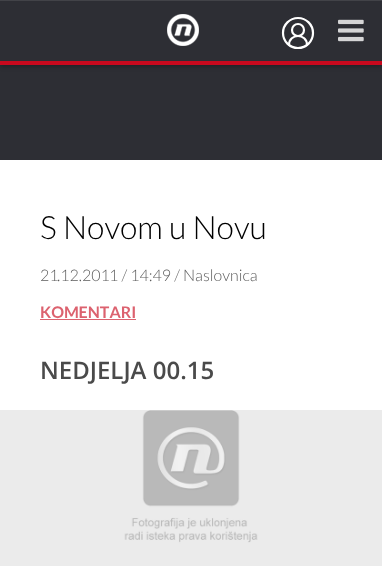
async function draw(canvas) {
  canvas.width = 382;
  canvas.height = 566;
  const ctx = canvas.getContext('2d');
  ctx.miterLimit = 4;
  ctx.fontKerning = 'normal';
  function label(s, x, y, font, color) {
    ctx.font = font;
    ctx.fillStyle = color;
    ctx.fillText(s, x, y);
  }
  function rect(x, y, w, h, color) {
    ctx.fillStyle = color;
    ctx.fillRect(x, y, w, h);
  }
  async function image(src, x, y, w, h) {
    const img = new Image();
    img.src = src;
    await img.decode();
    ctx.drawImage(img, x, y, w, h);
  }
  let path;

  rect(0, 0, 382, 566, '#2d2e34');
  ctx.fillStyle = '#00000059';
  ctx.filter = 'blur(2.5px)';
  ctx.beginPath();
  ctx.rect(0, 1, 382, 65);
  ctx.fill();
  ctx.filter = 'none';
  rect(0, 1, 382, 60, '#2d2e34');
  rect(0, 0, 382, 1, '#424348');
  rect(0, 61, 382, 4, '#c8091e');
  await image('assets/img1.png', 167, 14, 32, 32);
  path = new Path2D('M307 45C307 33 289 33 289 45');
  ctx.strokeStyle = '#fff';
  ctx.lineWidth = 2.2;
  ctx.lineCap = 'round';
  ctx.lineJoin = 'round';
  ctx.stroke(path);
  ctx.beginPath();
  ctx.arc(298, 30, 6, 0, 2 * Math.PI);
  ctx.stroke();
  ctx.beginPath();
  ctx.arc(298, 33, 15, 0, 2 * Math.PI);
  ctx.stroke();
  await image('assets/img2.png', 338, 19, 26, 23);
  rect(0, 160, 382, 250, '#fff');
  label('S Novom u Novu', 40, 239, '300 32px Lato', '#000');
  label('21.12.2011 / 14:49 / Naslovnica', 40, 281, '300 16px Lato', '#5c5c5c');
  label('KOMENTARI', 40, 318, 'bold 16px Lato', '#dc626f');
  rect(40, 319, 96, 1, '#dc626f');
  label('NEDJELJA 00.15', 40, 379, '600 24px Open Sans', '#4a4a4a');
  await image('assets/img3.png', 0, 410, 382, 156);
}

draw(document.querySelector('canvas'));
